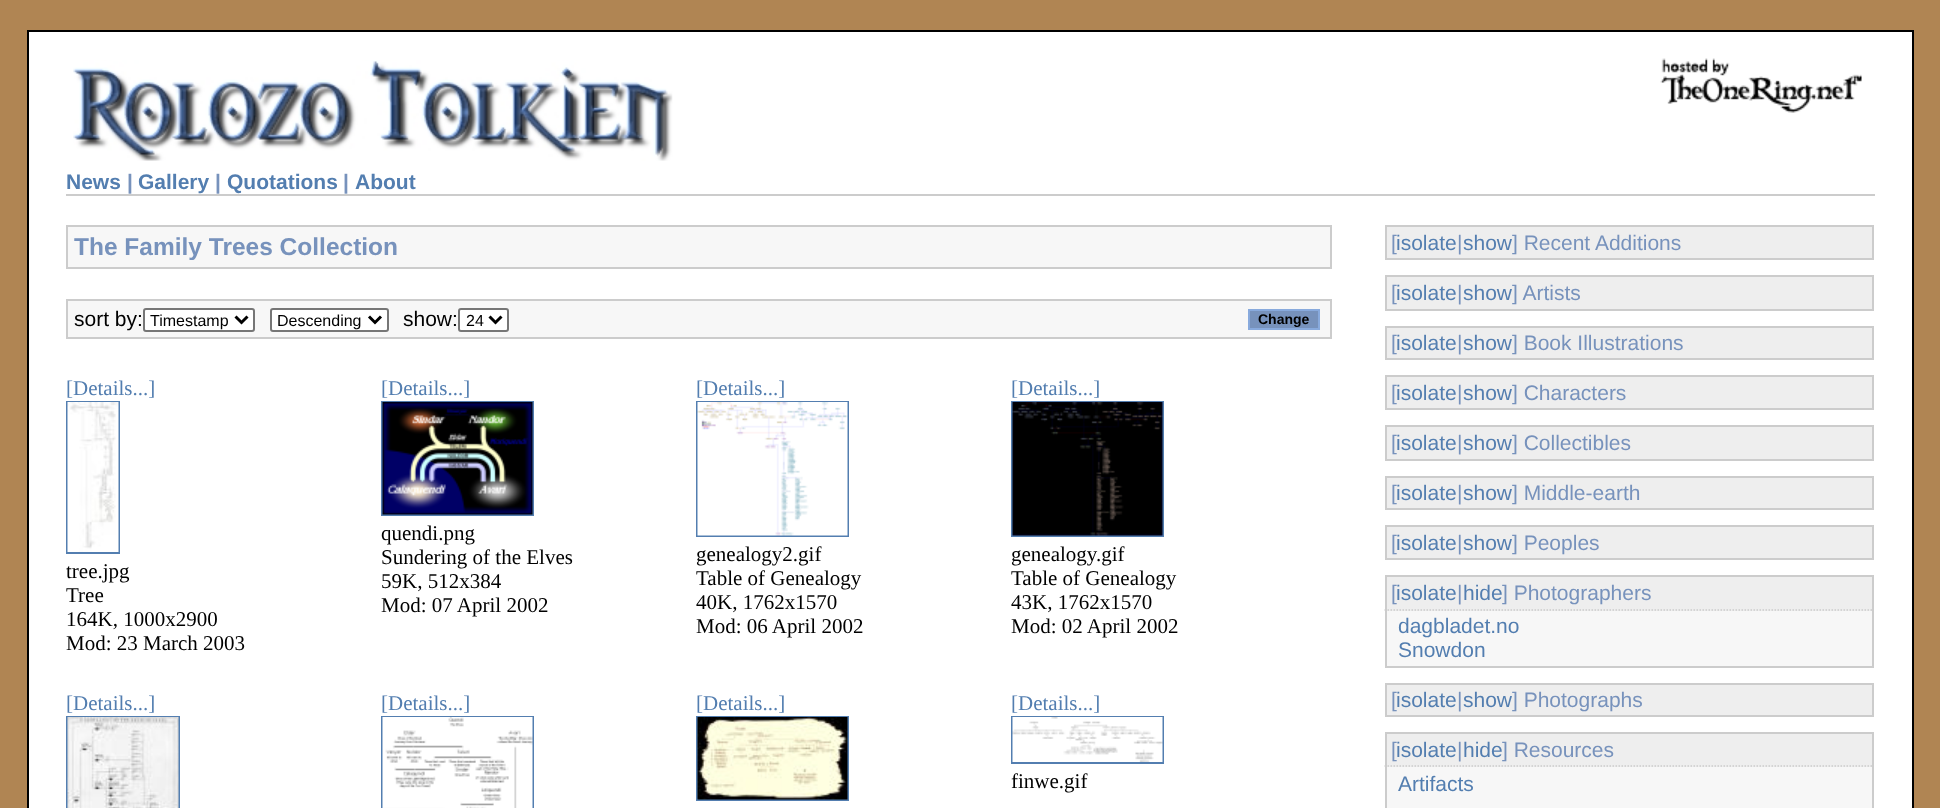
async function draw(canvas) {
  canvas.width = 1940;
  canvas.height = 808;
  const ctx = canvas.getContext('2d');
  ctx.miterLimit = 4;
  ctx.fontKerning = 'normal';
  function label(s, x, y, font, color) {
    ctx.font = font;
    ctx.fillStyle = color;
    ctx.fillText(s, x, y);
  }
  function rect(x, y, w, h, color) {
    ctx.fillStyle = color;
    ctx.fillRect(x, y, w, h);
  }
  async function image(src, x, y, w, h) {
    const img = new Image();
    img.src = src;
    await img.decode();
    ctx.drawImage(img, x, y, w, h);
  }
  let path;

  rect(0, 0, 1940, 808, '#b08553');
  ctx.fillStyle = '#fff';
  ctx.beginPath();
  ctx.rect(28, 31, 1885, 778);
  ctx.fill();
  ctx.strokeStyle = '#000';
  ctx.lineWidth = 2;
  ctx.stroke();
  await image('assets/img1.png', 73, 60, 600, 101);
  await image('assets/img2.png', 1660, 58, 202, 55);
  rect(66, 194, 1809, 2, '#ccc');
  label('News', 66, 189, 'bold 21px Liberation Sans', '#537eb0');
  label('|', 127, 189, 'bold 21px Liberation Sans', '#7792bc');
  label('Gallery', 138, 189, 'bold 21px Liberation Sans', '#537eb0');
  label('|', 215, 189, 'bold 21px Liberation Sans', '#7792bc');
  label('Quotations', 227, 189, 'bold 21px Liberation Sans', '#537eb0');
  label('|', 343, 189, 'bold 21px Liberation Sans', '#7792bc');
  label('About', 355, 189, 'bold 21px Liberation Sans', '#537eb0');
  ctx.fillStyle = '#f7f7f7';
  ctx.beginPath();
  ctx.rect(67, 226, 1264, 42);
  ctx.fill();
  ctx.strokeStyle = '#ccc';
  ctx.stroke();
  label('The Family Trees Collection', 74, 255, 'bold 24.5px Liberation Sans', '#7792bc');
  ctx.fillStyle = '#f7f7f7';
  ctx.beginPath();
  ctx.rect(67, 300, 1264, 38);
  ctx.fill();
  ctx.stroke();
  label('sort by:', 74, 326, '21px Liberation Sans', '#000');
  ctx.fillStyle = '#fff';
  ctx.beginPath();
  ctx.roundRect(144, 309, 110, 22, 2);
  ctx.fill();
  ctx.strokeStyle = '#767676';
  ctx.stroke();
  path = new Path2D('M235.5 316.5L241.5 322.5L247.5 316.5');
  ctx.strokeStyle = '#000';
  ctx.lineWidth = 3;
  ctx.stroke(path);
  label('Timestamp', 150, 326, '16px Liberation Sans', '#000');
  ctx.fillStyle = '#fff';
  ctx.beginPath();
  ctx.roundRect(271, 309, 117, 22, 2);
  ctx.fill();
  ctx.strokeStyle = '#767676';
  ctx.lineWidth = 2;
  ctx.stroke();
  path = new Path2D('M369 316.5L375 322.5L381 316.5');
  ctx.strokeStyle = '#000';
  ctx.lineWidth = 3;
  ctx.stroke(path);
  label('Descending', 277, 326, '16px Liberation Sans', '#000');
  label('show:', 403, 326, '21px Liberation Sans', '#000');
  ctx.fillStyle = '#fff';
  ctx.beginPath();
  ctx.roundRect(459, 309, 49, 22, 2);
  ctx.fill();
  ctx.strokeStyle = '#767676';
  ctx.lineWidth = 2;
  ctx.stroke();
  path = new Path2D('M489.5 316.5L495.5 322.5L501.5 316.5');
  ctx.strokeStyle = '#000';
  ctx.lineWidth = 3;
  ctx.stroke(path);
  label('24', 466, 326, '16px Liberation Sans', '#000');
  ctx.fillStyle = '#7792bc';
  ctx.beginPath();
  ctx.rect(1249, 310, 70, 19);
  ctx.fill();
  ctx.strokeStyle = '#8ad';
  ctx.lineWidth = 2;
  ctx.stroke();
  label('Change', 1258, 324, 'bold 14px Liberation Sans', '#000');
  label('[Details...]', 66, 395, '21px Liberation Serif', '#537eb0');
  ctx.strokeStyle = '#537eb0';
  ctx.strokeRect(67, 402, 52, 151);
  await image('assets/img3.png', 67, 402, 52, 150);
  label('tree.jpg', 66, 578, '21px Liberation Serif', '#000');
  label('Tree', 66, 602, '21px Liberation Serif', '#000');
  label('164K, 1000x2900', 66, 626, '21px Liberation Serif', '#000');
  label('Mod: 23 March 2003', 66, 650, '21px Liberation Serif', '#000');
  label('[Details...]', 381, 395, '21px Liberation Serif', '#537eb0');
  ctx.strokeRect(382, 402, 151, 113);
  await image('assets/img4.png', 382, 402, 151, 113);
  label('quendi.png', 381, 540, '21px Liberation Serif', '#000');
  label('Sundering of the Elves', 381, 564, '21px Liberation Serif', '#000');
  label('59K, 512x384', 381, 588, '21px Liberation Serif', '#000');
  label('Mod: 07 April 2002', 381, 612, '21px Liberation Serif', '#000');
  label('[Details...]', 696, 395, '21px Liberation Serif', '#537eb0');
  ctx.strokeRect(697, 402, 151, 134);
  await image('assets/img5.png', 697, 402, 151, 134);
  label('genealogy2.gif', 696, 561, '21px Liberation Serif', '#000');
  label('Table of Genealogy', 696, 585, '21px Liberation Serif', '#000');
  label('40K, 1762x1570', 696, 609, '21px Liberation Serif', '#000');
  label('Mod: 06 April 2002', 696, 633, '21px Liberation Serif', '#000');
  label('[Details...]', 1011, 395, '21px Liberation Serif', '#537eb0');
  ctx.strokeRect(1012, 402, 151, 134);
  await image('assets/img6.png', 1012, 402, 151, 134);
  label('genealogy.gif', 1011, 561, '21px Liberation Serif', '#000');
  label('Table of Genealogy', 1011, 585, '21px Liberation Serif', '#000');
  label('43K, 1762x1570', 1011, 609, '21px Liberation Serif', '#000');
  label('Mod: 02 April 2002', 1011, 633, '21px Liberation Serif', '#000');
  label('[Details...]', 66, 710, '21px Liberation Serif', '#537eb0');
  ctx.strokeRect(67, 717, 112, 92);
  await image('assets/img7.png', 67, 717, 112, 91);
  label('[Details...]', 381, 710, '21px Liberation Serif', '#537eb0');
  ctx.strokeRect(382, 717, 151, 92);
  await image('assets/img8.png', 382, 717, 151, 91);
  label('[Details...]', 696, 710, '21px Liberation Serif', '#537eb0');
  ctx.strokeRect(697, 717, 151, 83);
  await image('assets/img9.png', 697, 717, 151, 83);
  label('[Details...]', 1011, 710, '21px Liberation Serif', '#537eb0');
  ctx.strokeRect(1012, 717, 151, 46);
  await image('assets/img10.png', 1012, 717, 151, 45);
  label('finwe.gif', 1011, 788, '21px Liberation Serif', '#000');
  ctx.fillStyle = '#eee';
  ctx.beginPath();
  ctx.rect(1386, 226, 487, 33);
  ctx.fill();
  ctx.strokeStyle = '#ccc';
  ctx.stroke();
  label('[', 1391, 250, '21px Liberation Sans', '#7792bc');
  label('isolate', 1396, 250, '21px Liberation Sans', '#537eb0');
  label('|', 1457, 250, '21px Liberation Sans', '#7792bc');
  label('show', 1463, 250, '21px Liberation Sans', '#537eb0');
  label('] Recent Additions', 1512, 250, '21px Liberation Sans', '#7792bc');
  ctx.fillStyle = '#eee';
  ctx.beginPath();
  ctx.rect(1386, 276, 487, 34);
  ctx.fill();
  ctx.stroke();
  label('[', 1391, 300, '21px Liberation Sans', '#7792bc');
  label('isolate', 1396, 300, '21px Liberation Sans', '#537eb0');
  label('|', 1457, 300, '21px Liberation Sans', '#7792bc');
  label('show', 1463, 300, '21px Liberation Sans', '#537eb0');
  label('] Artists', 1512, 300, '21px Liberation Sans', '#7792bc');
  ctx.fillStyle = '#eee';
  ctx.beginPath();
  ctx.rect(1386, 327, 487, 32);
  ctx.fill();
  ctx.stroke();
  label('[', 1391, 350, '21px Liberation Sans', '#7792bc');
  label('isolate', 1396, 350, '21px Liberation Sans', '#537eb0');
  label('|', 1457, 350, '21px Liberation Sans', '#7792bc');
  label('show', 1463, 350, '21px Liberation Sans', '#537eb0');
  label('] Book Illustrations', 1512, 350, '21px Liberation Sans', '#7792bc');
  ctx.fillStyle = '#eee';
  ctx.beginPath();
  ctx.rect(1386, 376, 487, 33);
  ctx.fill();
  ctx.stroke();
  label('[', 1391, 400, '21px Liberation Sans', '#7792bc');
  label('isolate', 1396, 400, '21px Liberation Sans', '#537eb0');
  label('|', 1457, 400, '21px Liberation Sans', '#7792bc');
  label('show', 1463, 400, '21px Liberation Sans', '#537eb0');
  label('] Characters', 1512, 400, '21px Liberation Sans', '#7792bc');
  ctx.fillStyle = '#eee';
  ctx.beginPath();
  ctx.rect(1386, 426, 487, 34);
  ctx.fill();
  ctx.stroke();
  label('[', 1391, 450, '21px Liberation Sans', '#7792bc');
  label('isolate', 1396, 450, '21px Liberation Sans', '#537eb0');
  label('|', 1457, 450, '21px Liberation Sans', '#7792bc');
  label('show', 1463, 450, '21px Liberation Sans', '#537eb0');
  label('] Collectibles', 1512, 450, '21px Liberation Sans', '#7792bc');
  ctx.fillStyle = '#eee';
  ctx.beginPath();
  ctx.rect(1386, 477, 487, 32);
  ctx.fill();
  ctx.stroke();
  label('[', 1391, 500, '21px Liberation Sans', '#7792bc');
  label('isolate', 1396, 500, '21px Liberation Sans', '#537eb0');
  label('|', 1457, 500, '21px Liberation Sans', '#7792bc');
  label('show', 1463, 500, '21px Liberation Sans', '#537eb0');
  label('] Middle-earth', 1512, 500, '21px Liberation Sans', '#7792bc');
  ctx.fillStyle = '#eee';
  ctx.beginPath();
  ctx.rect(1386, 526, 487, 33);
  ctx.fill();
  ctx.stroke();
  label('[', 1391, 550, '21px Liberation Sans', '#7792bc');
  label('isolate', 1396, 550, '21px Liberation Sans', '#537eb0');
  label('|', 1457, 550, '21px Liberation Sans', '#7792bc');
  label('show', 1463, 550, '21px Liberation Sans', '#537eb0');
  label('] Peoples', 1512, 550, '21px Liberation Sans', '#7792bc');
  rect(1387, 577, 485, 34, '#eee');
  rect(1385, 575, 489, 2, '#ccc');
  rect(1872, 575, 2, 93, '#ccc');
  path = new Path2D('M1384.5 610H1873.5');
  ctx.lineWidth = 1.5;
  ctx.setLineDash([1.5, 1.5]);
  ctx.stroke(path);
  rect(1385, 575, 2, 36, '#ccc');
  label('[', 1391, 600, '21px Liberation Sans', '#7792bc');
  label('isolate', 1396, 600, '21px Liberation Sans', '#537eb0');
  label('|', 1457, 600, '21px Liberation Sans', '#7792bc');
  label('hide', 1463, 600, '21px Liberation Sans', '#537eb0');
  label('] Photographers', 1502, 600, '21px Liberation Sans', '#7792bc');
  rect(1387, 611, 485, 55, '#f7f7f7');
  rect(1385, 666, 489, 2, '#ccc');
  rect(1385, 611, 2, 57, '#ccc');
  label('dagbladet.no', 1398, 633, '21px Liberation Sans', '#537eb0');
  label('Snowdon', 1398, 657, '21px Liberation Sans', '#537eb0');
  ctx.fillStyle = '#eee';
  ctx.beginPath();
  ctx.rect(1386, 684, 487, 32);
  ctx.fill();
  ctx.lineWidth = 2;
  ctx.setLineDash([]);
  ctx.stroke();
  label('[', 1391, 707, '21px Liberation Sans', '#7792bc');
  label('isolate', 1396, 707, '21px Liberation Sans', '#537eb0');
  label('|', 1457, 707, '21px Liberation Sans', '#7792bc');
  label('show', 1463, 707, '21px Liberation Sans', '#537eb0');
  label('] Photographs', 1512, 707, '21px Liberation Sans', '#7792bc');
  rect(1387, 734, 485, 33, '#eee');
  rect(1385, 732, 489, 2, '#ccc');
  rect(1872, 732, 2, 76, '#ccc');
  path = new Path2D('M1384.5 766H1873.5');
  ctx.lineWidth = 1.5;
  ctx.setLineDash([1.5, 1.5]);
  ctx.stroke(path);
  rect(1385, 732, 2, 76, '#ccc');
  label('[', 1391, 757, '21px Liberation Sans', '#7792bc');
  label('isolate', 1396, 757, '21px Liberation Sans', '#537eb0');
  label('|', 1457, 757, '21px Liberation Sans', '#7792bc');
  label('hide', 1463, 757, '21px Liberation Sans', '#537eb0');
  label('] Resources', 1502, 757, '21px Liberation Sans', '#7792bc');
  rect(1387, 767, 485, 41, '#f7f7f7');
  label('Artifacts', 1398, 791, '21px Liberation Sans', '#537eb0');
}

draw(document.querySelector('canvas'));
